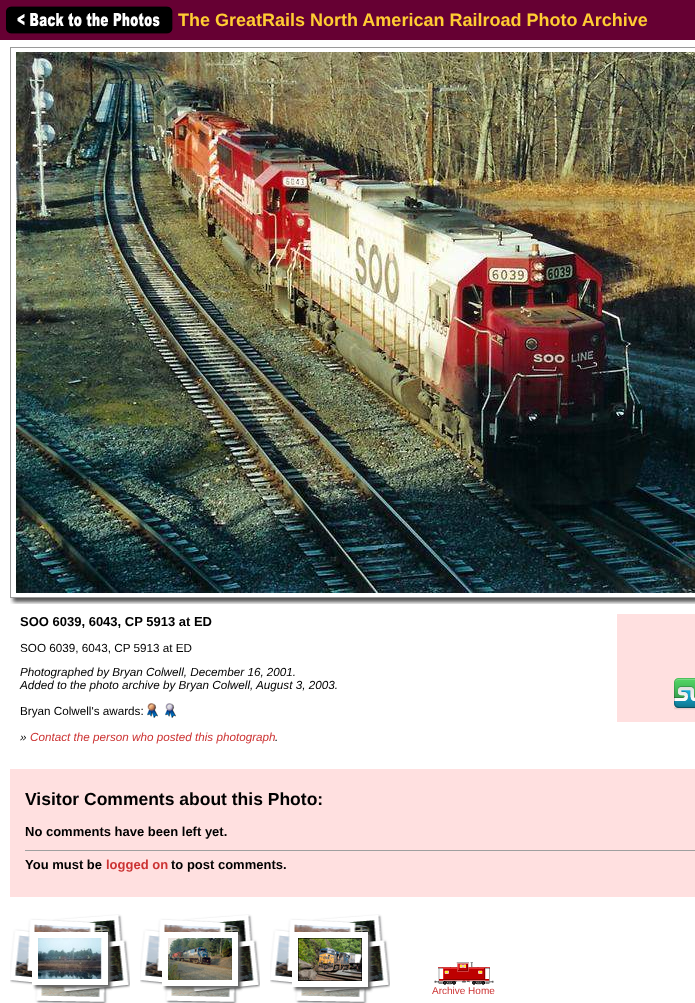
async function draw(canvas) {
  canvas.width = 695;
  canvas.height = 1003;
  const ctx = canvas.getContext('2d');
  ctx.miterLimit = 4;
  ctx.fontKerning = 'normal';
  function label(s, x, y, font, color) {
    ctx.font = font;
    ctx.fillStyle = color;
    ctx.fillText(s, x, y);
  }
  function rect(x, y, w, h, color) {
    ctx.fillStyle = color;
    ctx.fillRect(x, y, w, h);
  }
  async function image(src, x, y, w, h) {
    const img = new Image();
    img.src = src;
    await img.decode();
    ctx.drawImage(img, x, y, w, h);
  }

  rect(0, 0, 695, 1003, '#fff');
  rect(0, 0, 695, 40, '#603');
  await image('assets/img1.png', 6, 6, 167, 28);
  label('The GreatRails North American Railroad Photo Archive', 178, 26, 'bold 18px Liberation Sans', '#fc3');
  ctx.strokeStyle = '#9a9a9a';
  ctx.strokeRect(10.5, 47.5, 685, 550);
  await image('assets/img2.png', 16, 52, 679, 541);
  await image('assets/img3.png', 10, 598, 685, 6);
  label('SOO 6039, 6043, CP 5913 at ED', 20, 626, 'bold 13px Liberation Sans', '#000');
  label('SOO 6039, 6043, CP 5913 at ED', 20, 652, '11.7px Liberation Sans', '#000');
  label('Photographed by Bryan Colwell, December 16, 2001.', 20, 676, 'italic 11.7px Liberation Sans', '#000');
  label('Added to the photo archive by Bryan Colwell, August 3, 2003.', 20, 689, 'italic 11.7px Liberation Sans', '#000');
  label('Bryan Colwell\'s awards:', 20, 715, '11.7px Liberation Sans', '#000');
  await image('assets/img4.png', 147, 703, 11, 15);
  await image('assets/img5.png', 165, 703, 11, 15);
  label('»', 20, 741, 'italic 11.7px Liberation Sans', '#000');
  label('Contact the person who posted this photograph', 30, 741, 'italic 11.7px Liberation Sans', '#c33');
  label('.', 275, 741, 'italic 11.7px Liberation Sans', '#000');
  rect(617, 614, 78, 108, '#ffe0e0');
  await image('assets/img6.png', 674, 678, 21, 32);
  rect(10, 769, 685, 128, '#ffe0e0');
  label('Visitor Comments about this Photo:', 25, 805, 'bold 17.5px Liberation Sans', '#000');
  label('No comments have been left yet.', 25, 836, 'bold 13px Liberation Sans', '#000');
  rect(25, 850, 670, 1, '#9f9f9f');
  label('You must be', 25, 869, 'bold 13px Liberation Sans', '#000');
  label('logged on', 106, 869, 'bold 13px Liberation Sans', '#c33');
  label('to post comments.', 171, 869, 'bold 13px Liberation Sans', '#000');
  await image('assets/img7.png', 10, 914, 120, 89);
  ctx.fillStyle = '#666';
  ctx.filter = 'blur(1.5px)';
  ctx.beginPath();
  ctx.rect(35, 935, 76, 53);
  ctx.fill();
  ctx.filter = 'none';
  rect(32, 932, 76, 53, '#fff');
  await image('assets/img8.png', 38, 938, 64, 41);
  await image('assets/img7.png', 140, 914, 120, 89);
  ctx.fillStyle = '#666';
  ctx.filter = 'blur(1.5px)';
  ctx.beginPath();
  ctx.rect(165, 935, 76, 54);
  ctx.fill();
  ctx.filter = 'none';
  rect(162, 932, 76, 54, '#fff');
  await image('assets/img9.png', 168, 938, 64, 42);
  await image('assets/img7.png', 270, 914, 120, 89);
  ctx.fillStyle = '#666';
  ctx.filter = 'blur(1.5px)';
  ctx.beginPath();
  ctx.rect(295, 935, 76, 55);
  ctx.fill();
  ctx.filter = 'none';
  rect(292, 932, 76, 55, '#fff');
  await image('assets/img10.png', 298, 938, 64, 43);
  await image('assets/img11.png', 434, 962, 60, 23);
  label('Archive Home', 432, 994, '10px Liberation Sans', '#c33');
}

draw(document.querySelector('canvas'));
